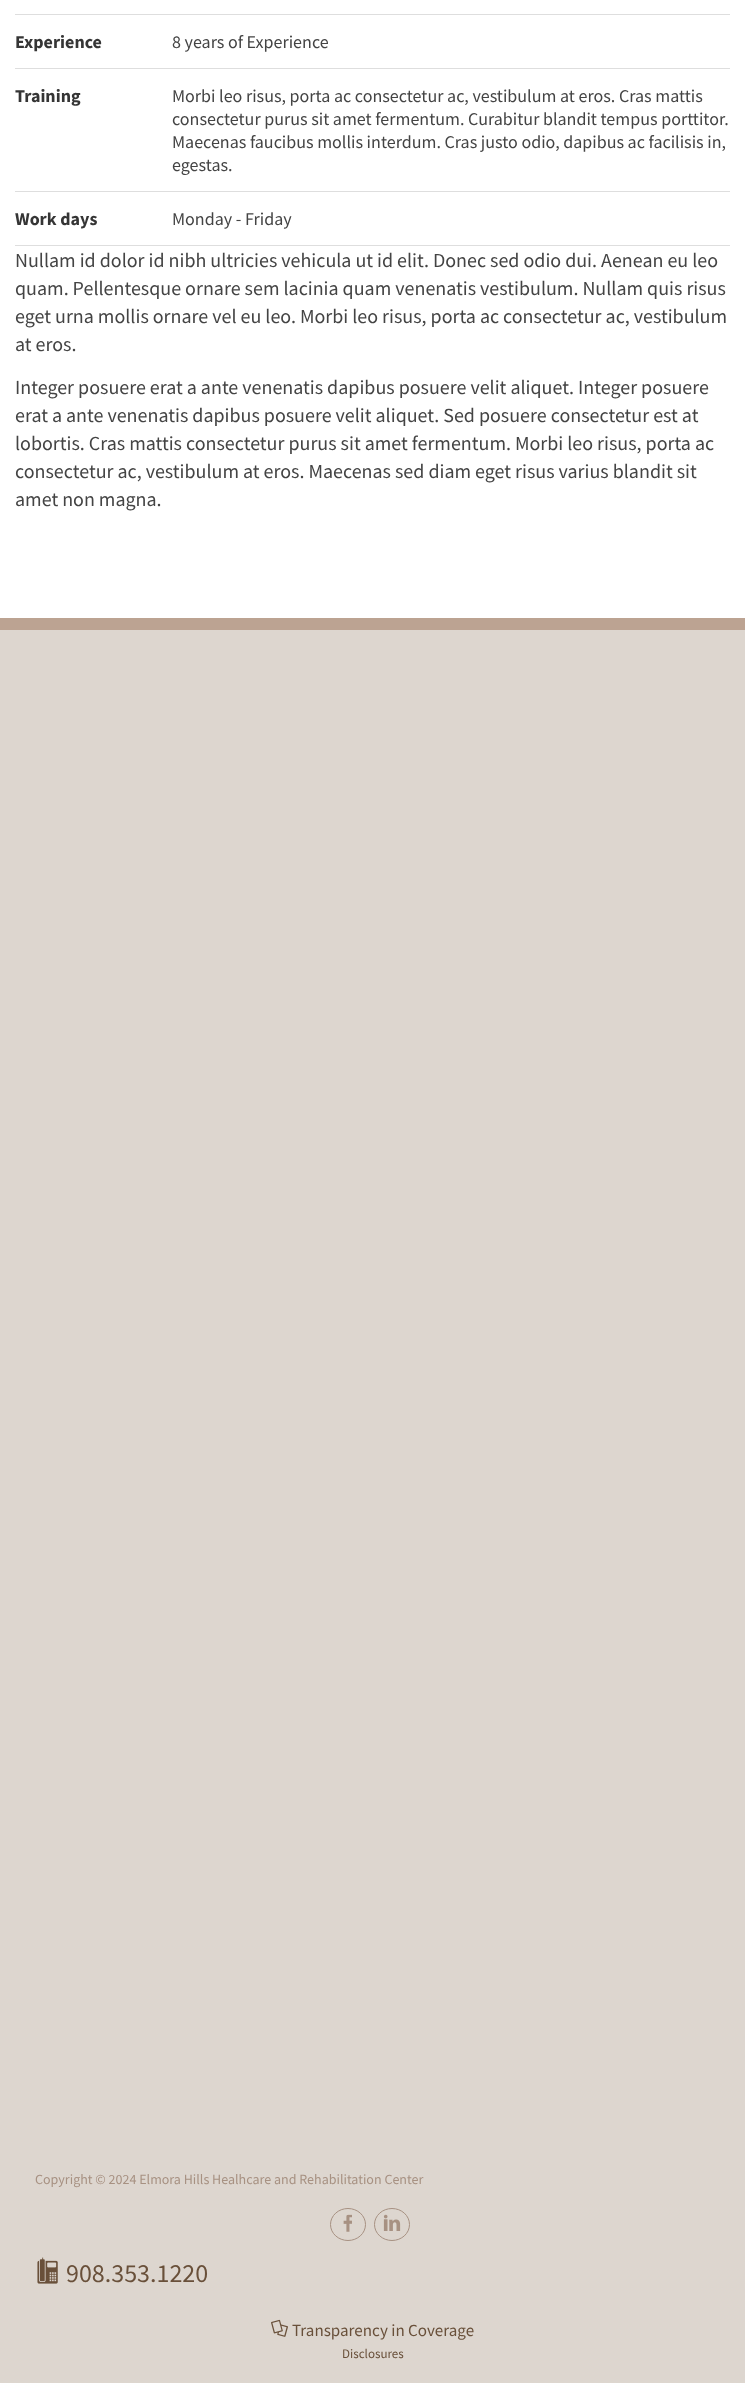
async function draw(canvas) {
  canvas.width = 745;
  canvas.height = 2383;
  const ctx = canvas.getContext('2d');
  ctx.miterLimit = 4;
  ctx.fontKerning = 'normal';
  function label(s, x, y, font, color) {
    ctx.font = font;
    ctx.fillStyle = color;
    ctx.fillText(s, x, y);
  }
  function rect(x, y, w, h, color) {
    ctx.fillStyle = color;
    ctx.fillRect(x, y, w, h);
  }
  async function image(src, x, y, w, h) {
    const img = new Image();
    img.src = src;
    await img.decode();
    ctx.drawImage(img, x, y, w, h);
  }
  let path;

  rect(0, 0, 745, 2383, '#fff');
  rect(15, 14, 715, 1, '#dedede');
  rect(15, 68, 715, 1, '#dedede');
  label('Experience', 15, 48, 'bold 18px Source Sans Pro', '#353535');
  label('8 years of Experience', 172, 48, '18px Source Sans Pro', '#444');
  rect(15, 191, 715, 1, '#dedede');
  label('Training', 15, 102, 'bold 18px Source Sans Pro', '#353535');
  label('Morbi leo risus, porta ac consectetur ac, vestibulum at eros. Cras mattis', 172, 102, '18px Source Sans Pro', '#444');
  label('consectetur purus sit amet fermentum. Curabitur blandit tempus porttitor.', 172, 125, '18px Source Sans Pro', '#444');
  label('Maecenas faucibus mollis interdum. Cras justo odio, dapibus ac facilisis in,', 172, 148, '18px Source Sans Pro', '#444');
  label('egestas.', 172, 171, '18px Source Sans Pro', '#444');
  rect(15, 245, 715, 1, '#dedede');
  label('Work days', 15, 225, 'bold 18px Source Sans Pro', '#353535');
  label('Monday - Friday', 172, 225, '18px Source Sans Pro', '#444');
  label('Nullam id dolor id nibh ultricies vehicula ut id elit. Donec sed odio dui. Aenean eu leo', 15, 267, '20px Source Sans Pro', '#444');
  label('quam. Pellentesque ornare sem lacinia quam venenatis vestibulum. Nullam quis risus', 15, 295, '20px Source Sans Pro', '#444');
  label('eget urna mollis ornare vel eu leo. Morbi leo risus, porta ac consectetur ac, vestibulum', 15, 323, '20px Source Sans Pro', '#444');
  label('at eros.', 15, 351, '20px Source Sans Pro', '#444');
  label('Integer posuere erat a ante venenatis dapibus posuere velit aliquet. Integer posuere', 15, 394, '20px Source Sans Pro', '#444');
  label('erat a ante venenatis dapibus posuere velit aliquet. Sed posuere consectetur est at', 15, 422, '20px Source Sans Pro', '#444');
  label('lobortis. Cras mattis consectetur purus sit amet fermentum. Morbi leo risus, porta ac', 15, 450, '20px Source Sans Pro', '#444');
  label('consectetur ac, vestibulum at eros. Maecenas sed diam eget risus varius blandit sit', 15, 478, '20px Source Sans Pro', '#444');
  label('amet non magna.', 15, 506, '20px Source Sans Pro', '#444');
  rect(0, 630, 745, 1753, '#ddd6cf');
  rect(0, 618, 745, 12, '#bca392');
  label('Copyright © 2024 Elmora Hills Healhcare and Rehabilitation Center', 35, 2184, '14px Source Sans Pro', '#a79182');
  path = new Path2D('M348 2208.5C357.5 2208.5 365.5 2215.5 365.5 2224.5C365.5 2233.5 357.5 2240.5 348 2240.5C338.5 2240.5 330.5 2233.5 330.5 2224.5C330.5 2215.5 338.5 2208.5 348 2208.5Z');
  ctx.strokeStyle = '#a79182';
  ctx.stroke(path);
  path = new Path2D('M392 2208.5C401.5 2208.5 409.5 2215.5 409.5 2224.5C409.5 2233.5 401.5 2240.5 392 2240.5C382.5 2240.5 374.5 2233.5 374.5 2224.5C374.5 2215.5 382.5 2208.5 392 2208.5Z');
  ctx.stroke(path);
  await image('assets/img1.png', 343, 2214, 9, 18);
  await image('assets/img2.png', 383, 2214, 18, 17);
  await image('assets/img3.png', 37, 2257, 21, 27);
  label('908.353.1220', 66, 2282, '26px Source Sans Pro', '#69503a');
  await image('assets/img4.png', 271, 2319, 17, 18);
  label('Transparency in Coverage', 292, 2336, '17px Source Sans Pro', '#69503a');
  label('Disclosures', 342, 2358, '13px Source Sans Pro', '#69503a');
}

draw(document.querySelector('canvas'));
